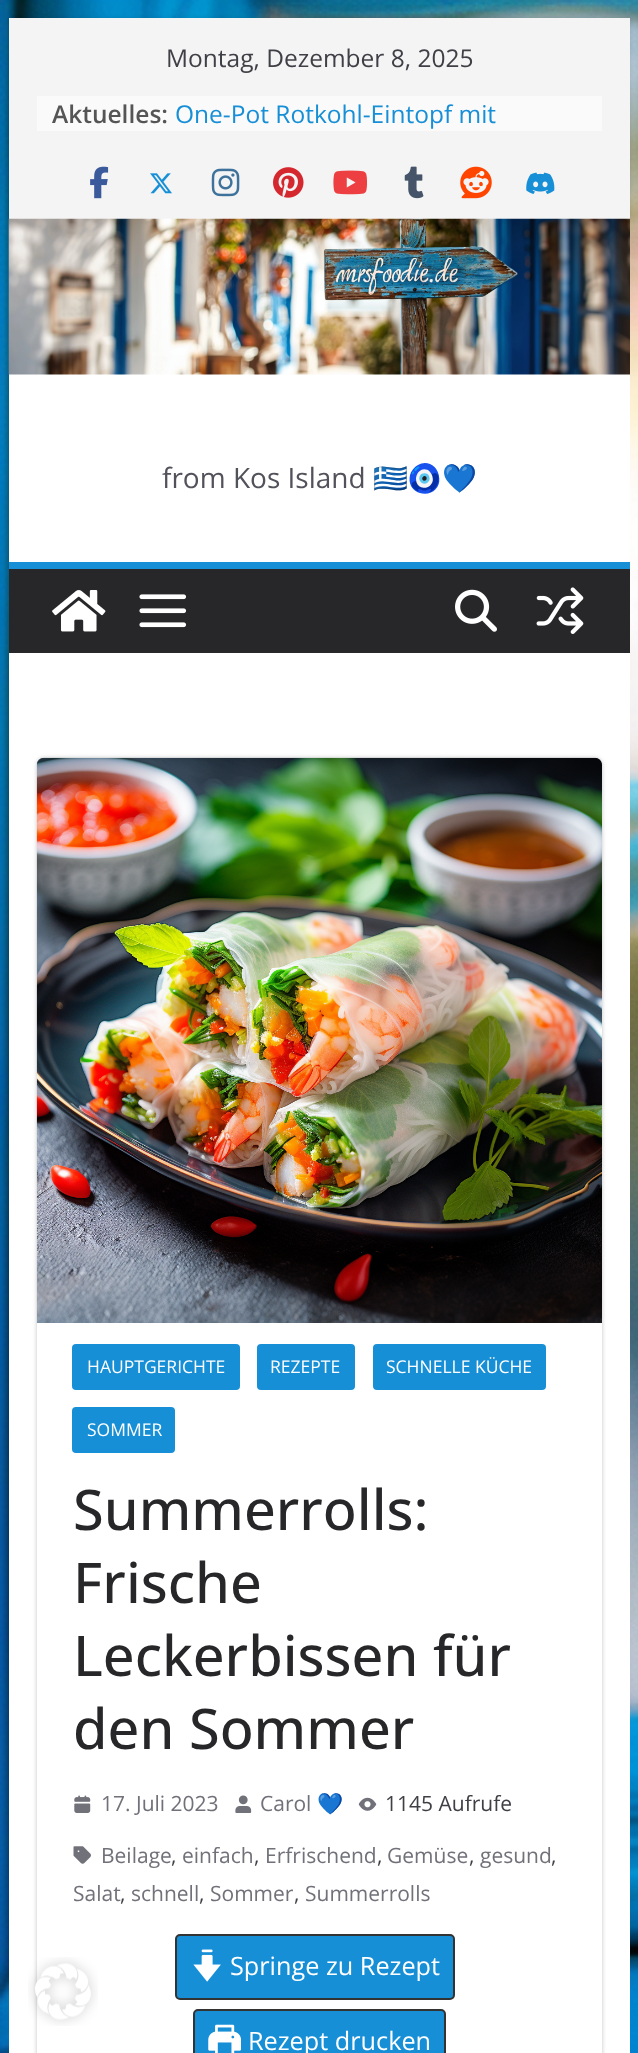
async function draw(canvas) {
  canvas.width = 638;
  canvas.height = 2053;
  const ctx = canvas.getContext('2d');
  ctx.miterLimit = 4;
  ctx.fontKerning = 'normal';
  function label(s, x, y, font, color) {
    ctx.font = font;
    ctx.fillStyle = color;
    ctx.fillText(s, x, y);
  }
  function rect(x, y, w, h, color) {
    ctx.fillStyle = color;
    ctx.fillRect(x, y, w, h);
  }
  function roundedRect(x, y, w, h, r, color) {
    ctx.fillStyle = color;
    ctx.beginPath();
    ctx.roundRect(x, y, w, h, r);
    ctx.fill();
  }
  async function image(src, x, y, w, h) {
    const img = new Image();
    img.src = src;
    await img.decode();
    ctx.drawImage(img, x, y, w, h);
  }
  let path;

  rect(0, 0, 638, 2053, '#fff');
  await image('assets/img1.png', 0, 0, 638, 2053);
  rect(9, 374, 621, 188, '#fff');
  ctx.fillStyle = '#0000001a';
  ctx.filter = 'blur(2px)';
  ctx.beginPath();
  ctx.rect(9, 18, 621, 201);
  ctx.fill();
  ctx.filter = 'none';
  rect(9, 18, 621, 201, '#f4f4f5');
  label('Montag, Dezember 8, 2025', 166, 67, '24.5px Open Sans', '#3f3f46');
  rect(37, 96, 565, 35, '#fafafa');
  label('Aktuelles:', 52, 123, '600 24.5px Open Sans', '#555');
  label('One-Pot Rotkohl-Eintopf mit', 175, 123, '24.5px Open Sans', '#178fd6');
  await image('assets/img2.png', 90, 166, 19, 33);
  await image('assets/img3.png', 150, 173, 22, 21);
  await image('assets/img4.png', 211, 168, 29, 29);
  await image('assets/img5.png', 273, 167, 31, 31);
  await image('assets/img6.png', 333, 170, 34, 25);
  await image('assets/img7.png', 404, 166, 20, 33);
  await image('assets/img8.png', 460, 166, 32, 33);
  await image('assets/img9.png', 526, 172, 29, 22);
  await image('assets/img10.png', 8, 218, 622, 157);
  label('from Kos Island', 162, 488, '28px Open Sans', '#52525b');
  label('🇬🇷🧿💙', 373, 488, '28px Noto Color Emoji', '#52525b');
  rect(9, 569, 621, 84, '#27272a');
  rect(9, 562, 621, 7, '#178fd6');
  await image('assets/img11.png', 52, 590, 54, 42);
  await image('assets/img12.png', 139, 594, 48, 34);
  await image('assets/img13.png', 455, 589, 42, 43);
  await image('assets/img14.png', 536, 587, 48, 47);
  rect(9, 653, 621, 1400, '#fff');
  ctx.save();
  path = new Path2D('M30 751H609V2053H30ZM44 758H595C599 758 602 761 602 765V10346C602 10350 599 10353 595 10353H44C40 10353 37 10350 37 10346V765C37 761 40 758 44 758Z');
  ctx.clip(path, 'evenodd');
  ctx.fillStyle = '#0000003d';
  ctx.filter = 'blur(2px)';
  ctx.beginPath();
  ctx.roundRect(37, 758, 565, 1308, 7);
  ctx.fill();
  ctx.filter = 'none';
  ctx.restore();
  await image('assets/img15.png', 36, 757, 566, 566);
  roundedRect(72, 1344, 168, 46, 4, '#178fd6');
  label('HAUPTGERICHTE', 87, 1373, '17.5px Open Sans', '#fff');
  roundedRect(257, 1344, 98, 46, 4, '#178fd6');
  label('REZEPTE', 270, 1373, '17.5px Open Sans', '#fff');
  roundedRect(373, 1344, 173, 46, 4, '#178fd6');
  label('SCHNELLE KÜCHE', 386, 1373, '17.5px Open Sans', '#fff');
  roundedRect(72, 1407, 103, 46, 4, '#178fd6');
  label('SOMMER', 87, 1436, '17.5px Open Sans', '#fff');
  label('Summerrolls:', 73, 1530, '500 56px Open Sans', '#27272a');
  label('Frische', 73, 1603, '500 56px Open Sans', '#27272a');
  label('Leckerbissen für', 73, 1676, '500 56px Open Sans', '#27272a');
  label('den Sommer', 73, 1749, '500 56px Open Sans', '#27272a');
  await image('assets/img16.png', 74, 1795, 17, 18);
  label('17. Juli 2023', 101, 1811, '21px Open Sans', '#71717a');
  await image('assets/img17.png', 235, 1795, 17, 18);
  label('Carol', 260, 1811, '21px Open Sans', '#71717a');
  label('💙', 317, 1811, '21px Noto Color Emoji', '#71717a');
  await image('assets/img18.png', 358, 1797, 19, 14);
  label('1145 Aufrufe', 385, 1811, '21px Open Sans', '#3f3f46');
  await image('assets/img19.png', 73, 1846, 18, 18);
  label('Beilage', 101, 1863, '21px Open Sans', '#71717a');
  label(',', 171, 1863, '21px Open Sans', '#3f3f46');
  label('einfach', 182, 1863, '21px Open Sans', '#71717a');
  label(',', 254, 1863, '21px Open Sans', '#3f3f46');
  label('Erfrischend', 265, 1863, '21px Open Sans', '#71717a');
  label(',', 377, 1863, '21px Open Sans', '#3f3f46');
  label('Gemüse', 387, 1863, '21px Open Sans', '#71717a');
  label(',', 469, 1863, '21px Open Sans', '#3f3f46');
  label('gesund', 480, 1863, '21px Open Sans', '#71717a');
  label(',', 551, 1863, '21px Open Sans', '#3f3f46');
  label('Salat', 73, 1901, '21px Open Sans', '#71717a');
  label(',', 120, 1901, '21px Open Sans', '#3f3f46');
  label('schnell', 131, 1901, '21px Open Sans', '#71717a');
  label(',', 199, 1901, '21px Open Sans', '#3f3f46');
  label('Sommer', 210, 1901, '21px Open Sans', '#71717a');
  label(',', 294, 1901, '21px Open Sans', '#3f3f46');
  label('Summerrolls', 305, 1901, '21px Open Sans', '#71717a');
  ctx.fillStyle = '#178fd6';
  ctx.beginPath();
  ctx.roundRect(176, 1935, 278, 64, 4);
  ctx.fill();
  ctx.strokeStyle = '#333';
  ctx.lineWidth = 2;
  ctx.stroke();
  await image('assets/img20.png', 193, 1949, 28, 33);
  label('Springe zu Rezept', 230, 1975, '25.25px Open Sans', '#fff');
  ctx.fillStyle = '#178fd6';
  ctx.beginPath();
  ctx.roundRect(194, 2010, 251, 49, 4);
  ctx.fill();
  ctx.stroke();
  await image('assets/img21.png', 208, 2024, 33, 29);
  label('Rezept drucken', 248, 2050, '25.25px Open Sans', '#fff');
  await image('assets/img22.png', 28, 1957, 70, 69);
}

draw(document.querySelector('canvas'));
